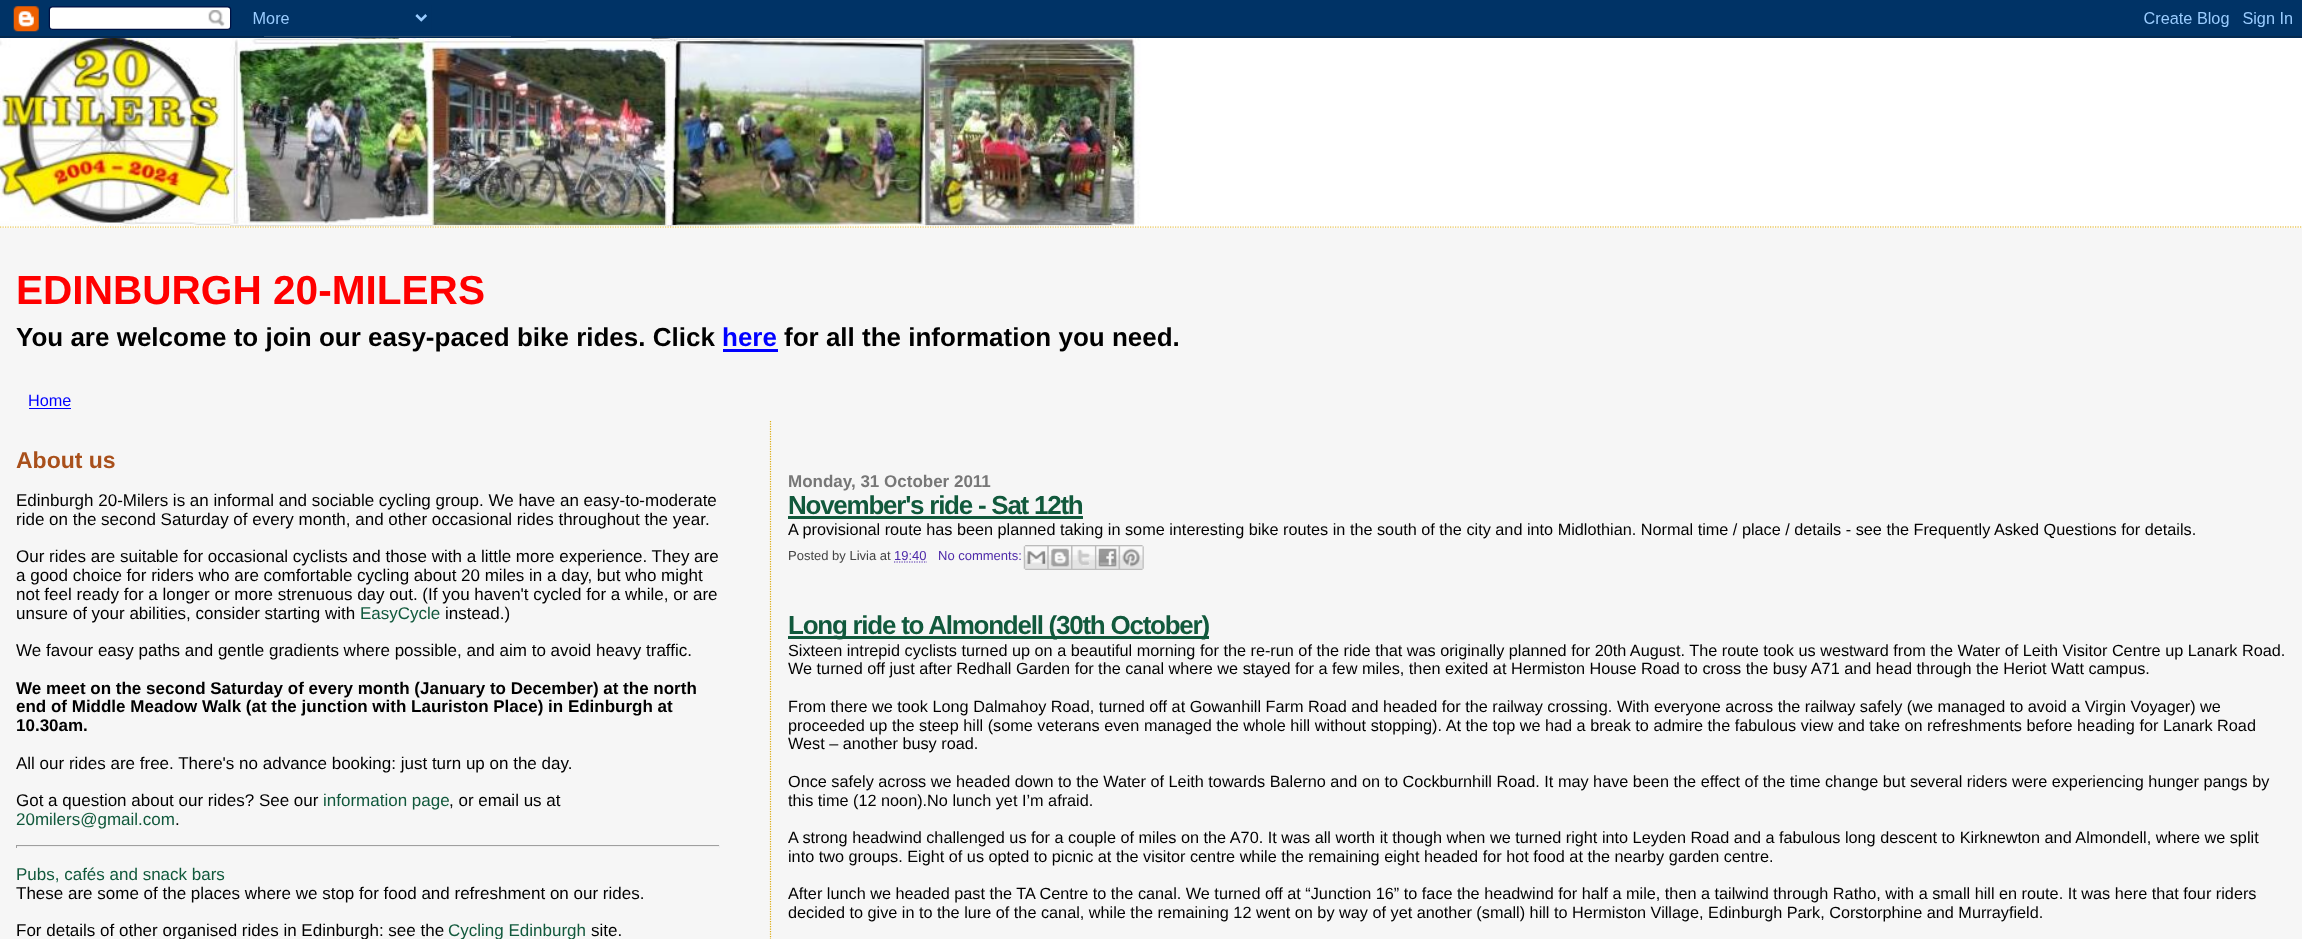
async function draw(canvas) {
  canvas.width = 2302;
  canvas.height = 939;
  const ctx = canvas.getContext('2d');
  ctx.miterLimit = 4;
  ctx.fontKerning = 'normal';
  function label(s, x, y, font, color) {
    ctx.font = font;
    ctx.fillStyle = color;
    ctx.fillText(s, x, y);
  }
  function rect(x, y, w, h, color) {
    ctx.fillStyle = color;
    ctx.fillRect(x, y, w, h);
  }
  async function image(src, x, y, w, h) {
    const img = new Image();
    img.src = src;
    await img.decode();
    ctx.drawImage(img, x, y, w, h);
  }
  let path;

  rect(0, 0, 2302, 939, '#f6f6f6');
  await image('assets/img1.png', 0, 0, 2302, 38);
  rect(0, 38, 2302, 190, '#fff');
  path = new Path2D('M0 227H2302.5');
  ctx.strokeStyle = '#e0ad12';
  ctx.lineWidth = 1.2;
  ctx.setLineDash([1.25, 1.25]);
  ctx.stroke(path);
  await image('assets/img2.png', 0, 38, 1580, 189);
  label('EDINBURGH 20-MILERS', 16, 304, 'bold 40.6px Liberation Sans', '#f00');
  label('You are welcome to join our easy-paced bike rides. Click', 16, 346, 'bold 26px Liberation Sans', '#000');
  label('here', 722, 346, 'bold 26px Liberation Sans', '#00f');
  rect(723, 349, 55, 3, '#00f');
  label('for all the information you need.', 784, 346, 'bold 26px Liberation Sans', '#000');
  label('Home', 28, 406, '16.25px Liberation Sans', '#00f');
  rect(29, 408, 42, 1, '#00f');
  label('About us', 16, 468, 'bold 23px Liberation Sans', '#a9501b');
  label('Edinburgh 20-Milers is an informal and sociable cycling group. We have an easy-to-moderate', 16, 506, '17px Liberation Sans', '#000');
  label('ride on the second Saturday of every month, and other occasional rides throughout the year.', 16, 525, '17px Liberation Sans', '#000');
  label('Our rides are suitable for occasional cyclists and those with a little more experience. They are', 16, 562, '17px Liberation Sans', '#000');
  label('a good choice for riders who are comfortable cycling about 20 miles in a day, but who might', 16, 581, '17px Liberation Sans', '#000');
  label('not feel ready for a longer or more strenuous day out. (If you haven\'t cycled for a while, or are', 16, 600, '17px Liberation Sans', '#000');
  label('unsure of your abilities, consider starting with', 16, 619, '17px Liberation Sans', '#000');
  label('EasyCycle', 360, 619, '17px Liberation Sans', '#11593c');
  label('instead.)', 445, 619, '17px Liberation Sans', '#000');
  label('We favour easy paths and gentle gradients where possible, and aim to avoid heavy traffic.', 16, 656, '17px Liberation Sans', '#000');
  label('We meet on the second Saturday of every month (January to December) at the north', 16, 694, 'bold 17px Liberation Sans', '#000');
  label('end of Middle Meadow Walk (at the junction with Lauriston Place) in Edinburgh at', 16, 712, 'bold 17px Liberation Sans', '#000');
  label('10.30am.', 16, 731, 'bold 17px Liberation Sans', '#000');
  label('All our rides are free. There\'s no advance booking: just turn up on the day.', 16, 769, '17px Liberation Sans', '#000');
  label('Got a question about our rides? See our', 16, 806, '17px Liberation Sans', '#000');
  label('information page', 323, 806, '17px Liberation Sans', '#11593c');
  label(', or email us at', 449, 806, '17px Liberation Sans', '#000');
  label('20milers@gmail.com', 16, 825, '17px Liberation Sans', '#11593c');
  label('.', 175, 825, '17px Liberation Sans', '#000');
  rect(16, 845, 704, 1, '#9f9f9f');
  rect(719, 845, 1, 3, '#eee');
  rect(16, 846, 704, 1, '#eee');
  rect(16, 845, 1, 3, '#9f9f9f');
  label('Pubs, cafés and snack bars', 16, 880, '17px Liberation Sans', '#11593c');
  label('These are some of the places where we stop for food and refreshment on our rides.', 16, 899, '17px Liberation Sans', '#000');
  label('For details of other organised rides in Edinburgh: see the', 16, 936, '17px Liberation Sans', '#000');
  label('Cycling Edinburgh', 448, 936, '17px Liberation Sans', '#11593c');
  label('site.', 591, 936, '17px Liberation Sans', '#000');
  path = new Path2D('M770.5 421V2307.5');
  ctx.stroke(path);
  label('Monday, 31 October 2011', 788, 487, 'bold 17px Liberation Sans', '#777');
  ctx.letterSpacing = '-1.25px';
  label('November\'s ride - Sat 12th', 788, 514, 'bold 26px Liberation Sans', '#11593c');
  rect(788, 516, 295, 3, '#11593c');
  ctx.letterSpacing = '0px';
  label('A provisional route has been planned taking in some interesting bike routes in the south of the city and into Midlothian. Normal time / place / details - see the Frequently Asked Questions for details.', 788, 535, '16.25px Liberation Sans', '#000');
  label('Posted by Livia at', 788, 560, '13px Liberation Sans', '#444');
  label('19:40', 894, 560, '13px Liberation Sans', '#4e2aa9');
  path = new Path2D('M894 562H927');
  ctx.strokeStyle = '#4e2aa9';
  ctx.stroke(path);
  label('No comments:', 938, 560, '13px Liberation Sans', '#4e2aa9');
  await image('assets/img3.png', 1023, 545, 25, 25);
  await image('assets/img4.png', 1047, 545, 25, 25);
  await image('assets/img5.png', 1071, 545, 24, 25);
  await image('assets/img6.png', 1095, 545, 24, 25);
  await image('assets/img7.png', 1118, 545, 26, 25);
  rect(788, 636, 421, 3, '#11593c');
  ctx.letterSpacing = '-1.25px';
  label('Long ride to Almondell (30th October)', 788, 634, 'bold 26px Liberation Sans', '#11593c');
  ctx.letterSpacing = '0px';
  label('Sixteen intrepid cyclists turned up on a beautiful morning for the re-run of the ride that was originally planned for 20th August. The route took us westward from the Water of Leith Visitor Centre up Lanark Road.', 788, 656, '16.25px Liberation Sans', '#000');
  label('We turned off just after Redhall Garden for the canal where we stayed for a few miles, then exited at Hermiston House Road to cross the busy A71 and head through the Heriot Watt campus.', 788, 674, '16.25px Liberation Sans', '#000');
  label('From there we took Long Dalmahoy Road, turned off at Gowanhill Farm Road and headed for the railway crossing. With everyone across the railway safely (we managed to avoid a Virgin Voyager) we', 788, 712, '16.25px Liberation Sans', '#000');
  label('proceeded up the steep hill (some veterans even managed the whole hill without stopping). At the top we had a break to admire the fabulous view and take on refreshments before heading for Lanark Road', 788, 731, '16.25px Liberation Sans', '#000');
  label('West – another busy road.', 788, 749, '16.25px Liberation Sans', '#000');
  label('Once safely across we headed down to the Water of Leith towards Balerno and on to Cockburnhill Road. It may have been the effect of the time change but several riders were experiencing hunger pangs by', 788, 787, '16.25px Liberation Sans', '#000');
  label('this time (12 noon).No lunch yet I’m afraid.', 788, 806, '16.25px Liberation Sans', '#000');
  label('A strong headwind challenged us for a couple of miles on the A70. It was all worth it though when we turned right into Leyden Road and a fabulous long descent to Kirknewton and Almondell, where we split', 788, 843, '16.25px Liberation Sans', '#000');
  label('into two groups. Eight of us opted to picnic at the visitor centre while the remaining eight headed for hot food at the nearby garden centre.', 788, 862, '16.25px Liberation Sans', '#000');
  label('After lunch we headed past the TA Centre to the canal. We turned off at “Junction 16” to face the headwind for half a mile, then a tailwind through Ratho, with a small hill en route. It was here that four riders', 788, 899, '16.25px Liberation Sans', '#000');
  label('decided to give in to the lure of the canal, while the remaining 12 went on by way of yet another (small) hill to Hermiston Village, Edinburgh Park, Corstorphine and Murrayfield.', 788, 918, '16.25px Liberation Sans', '#000');
}

draw(document.querySelector('canvas'));
